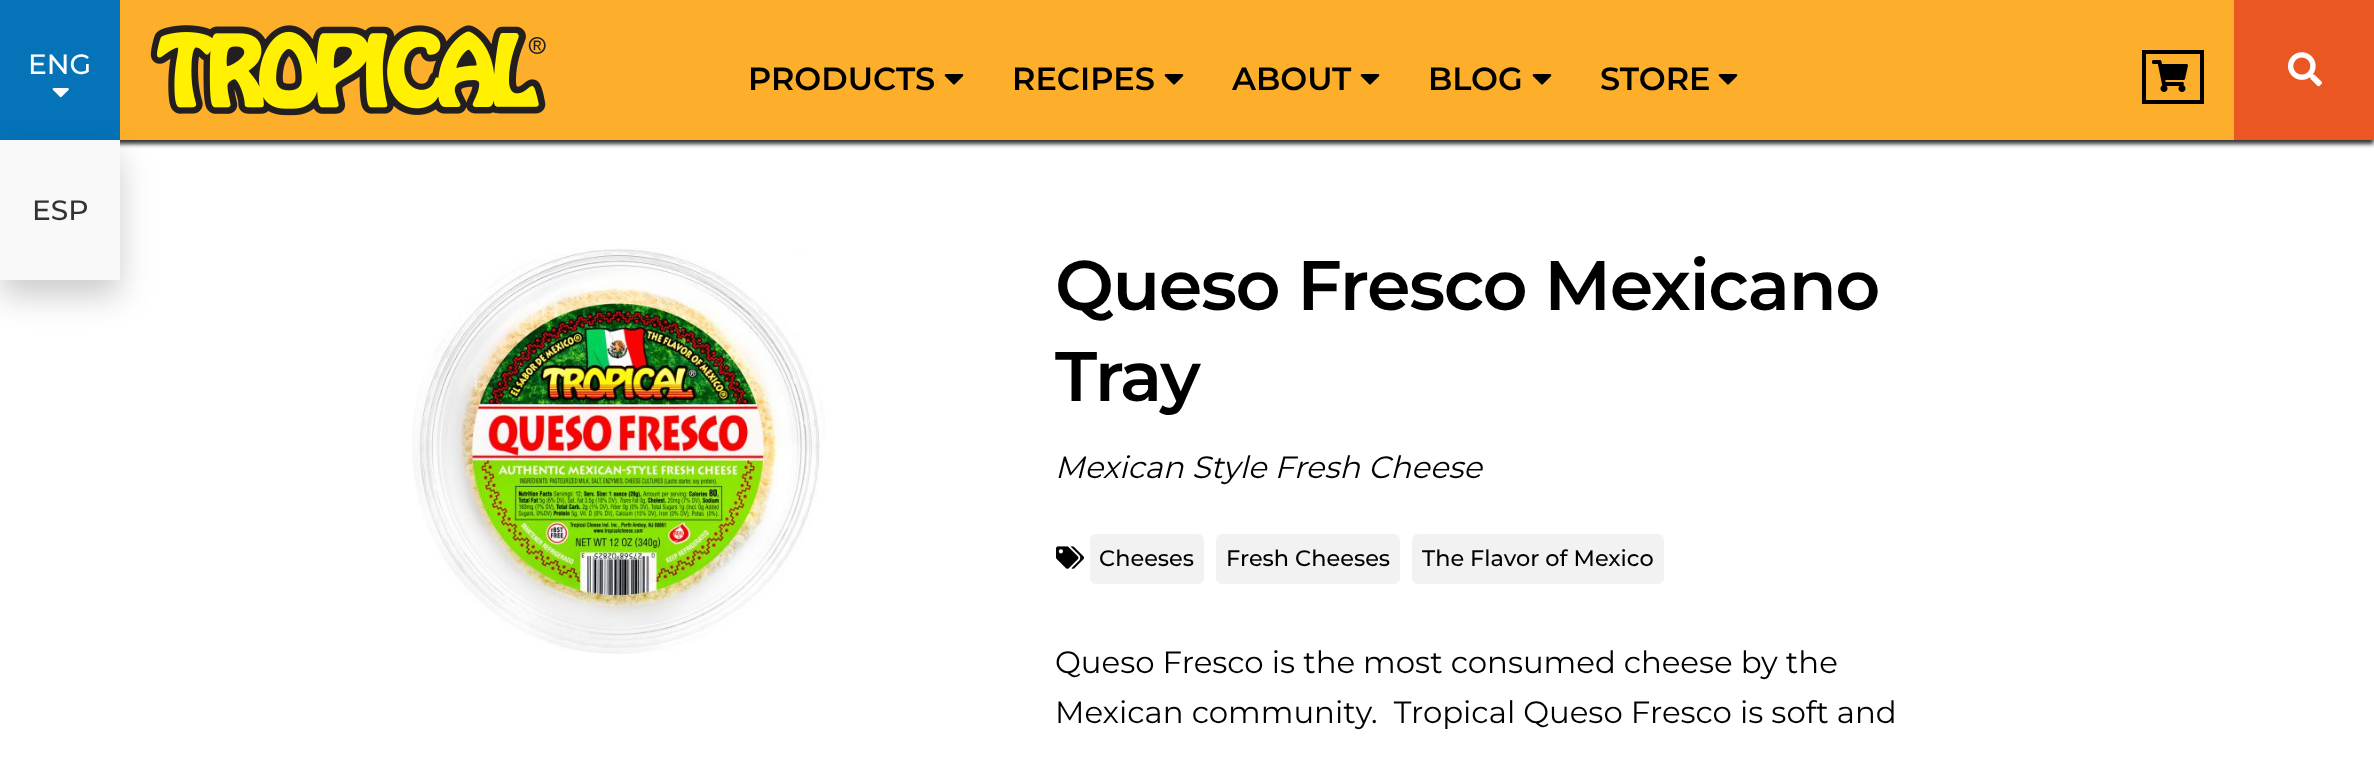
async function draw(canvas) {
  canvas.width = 2374;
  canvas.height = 766;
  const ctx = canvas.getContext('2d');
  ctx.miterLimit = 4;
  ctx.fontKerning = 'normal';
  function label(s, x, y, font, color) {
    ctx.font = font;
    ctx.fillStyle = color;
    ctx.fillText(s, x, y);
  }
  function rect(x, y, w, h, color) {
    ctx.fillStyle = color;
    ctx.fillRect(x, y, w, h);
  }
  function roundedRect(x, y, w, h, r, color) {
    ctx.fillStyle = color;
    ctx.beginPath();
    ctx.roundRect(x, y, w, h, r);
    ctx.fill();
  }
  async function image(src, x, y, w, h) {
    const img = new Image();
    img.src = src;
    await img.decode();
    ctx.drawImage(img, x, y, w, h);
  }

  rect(0, 0, 2374, 766, '#fff');
  ctx.fillStyle = '#333';
  ctx.filter = 'blur(2px)';
  ctx.beginPath();
  ctx.rect(0, 4, 2374, 140);
  ctx.fill();
  ctx.filter = 'none';
  rect(120, 0, 2114, 140, '#fdae2a');
  rect(0, 0, 120, 140, '#0573b8');
  label('ENG', 28, 74, '100 28px "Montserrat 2"', '#fff');
  await image('assets/img1.png', 52, 88, 17, 10);
  await image('assets/img2.png', 150, 25, 396, 91);
  ctx.fillStyle = '#00000033';
  ctx.filter = 'blur(16px)';
  ctx.beginPath();
  ctx.rect(0, 156, 120, 140);
  ctx.fill();
  ctx.filter = 'none';
  rect(0, 140, 120, 140, '#f9f9f9');
  label('ESP', 32, 220, '100 28px "Montserrat 2"', '#333');
  label('PRODUCTS', 748, 90, '100 32px Montserrat', '#000');
  await image('assets/img3.png', 944, 74, 20, 11);
  label('RECIPES', 1012, 90, '100 32px Montserrat', '#000');
  await image('assets/img3.png', 1164, 74, 20, 11);
  label('ABOUT', 1232, 90, '100 32px Montserrat', '#000');
  await image('assets/img3.png', 1360, 74, 20, 11);
  label('BLOG', 1428, 90, '100 32px Montserrat', '#000');
  await image('assets/img3.png', 1532, 74, 20, 11);
  label('STORE', 1600, 90, '100 32px Montserrat', '#000');
  await image('assets/img3.png', 1718, 74, 20, 11);
  rect(2234, 0, 140, 140, '#ea5723');
  await image('assets/img4.png', 2288, 52, 34, 35);
  ctx.strokeStyle = '#000';
  ctx.lineWidth = 4;
  ctx.strokeRect(2144, 52, 58, 50);
  await image('assets/img5.png', 2152, 60, 36, 32);
  await image('assets/img6.png', 412, 248, 413, 406);
  ctx.letterSpacing = '-1.4px';
  label('Queso Fresco Mexicano', 1055, 310, '100 70px Montserrat', '#000');
  label('Tray', 1055, 401, '100 70px Montserrat', '#000');
  ctx.letterSpacing = '0px';
  label('Mexican Style Fresh Cheese', 1055, 478, 'italic 100 30.8px Montserrat', '#000');
  await image('assets/img7.png', 1056, 546, 28, 23);
  roundedRect(1090, 534, 114, 50, 6, '#f2f2f2');
  label('Cheeses', 1099, 566, '100 22.4px "Montserrat 2"', '#000');
  roundedRect(1216, 534, 184, 50, 6, '#f2f2f2');
  label('Fresh Cheeses', 1226, 566, '100 22.4px "Montserrat 2"', '#000');
  roundedRect(1412, 534, 252, 50, 6, '#f2f2f2');
  label('The Flavor of Mexico', 1422, 566, '100 22.4px "Montserrat 2"', '#000');
  label('Queso Fresco is the most consumed cheese by the', 1055, 673, '100 30.8px "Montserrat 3"', '#000');
  label('Mexican community.  Tropical Queso Fresco is soft and', 1055, 723, '100 30.8px "Montserrat 3"', '#000');
}

draw(document.querySelector('canvas'));
